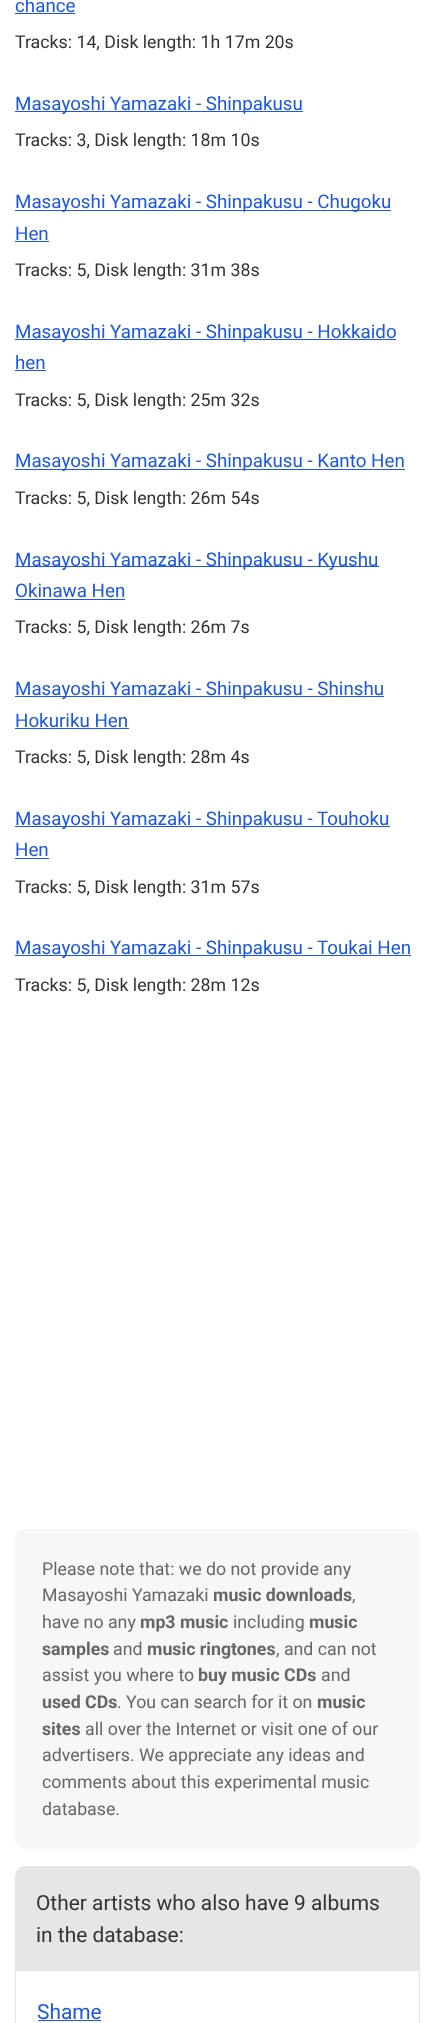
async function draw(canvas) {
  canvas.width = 434;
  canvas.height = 2023;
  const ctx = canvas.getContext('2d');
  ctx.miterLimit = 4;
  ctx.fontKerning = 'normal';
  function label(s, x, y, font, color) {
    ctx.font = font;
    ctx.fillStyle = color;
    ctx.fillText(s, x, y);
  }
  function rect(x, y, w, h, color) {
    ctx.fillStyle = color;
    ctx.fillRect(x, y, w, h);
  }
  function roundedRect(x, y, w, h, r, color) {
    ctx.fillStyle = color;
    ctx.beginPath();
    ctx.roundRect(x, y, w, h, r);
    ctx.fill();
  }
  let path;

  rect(0, 0, 434, 2023, '#fff');
  label('chance', 15, 12, '18.8px Roboto', '#1b57e4');
  rect(15, 13, 60, 1, '#1b57e4');
  label('Tracks: 14, Disk length: 1h 17m 20s', 15, 48, '17.75px Roboto', '#333');
  rect(15, 111, 288, 1, '#1b57e4');
  label('Masayoshi Yamazaki - Shinpakusu', 15, 110, '18.8px Roboto', '#1b57e4');
  label('Tracks: 3, Disk length: 18m 10s', 15, 146, '17.75px Roboto', '#333');
  rect(15, 210, 376, 1, '#1b57e4');
  label('Masayoshi Yamazaki - Shinpakusu - Chugoku', 15, 208, '18.8px Roboto', '#1b57e4');
  label('Hen', 15, 240, '18.8px Roboto', '#1b57e4');
  rect(15, 241, 34, 1, '#1b57e4');
  label('Tracks: 5, Disk length: 31m 38s', 15, 276, '17.75px Roboto', '#333');
  rect(15, 339, 381, 1, '#1b57e4');
  label('Masayoshi Yamazaki - Shinpakusu - Hokkaido', 15, 338, '18.8px Roboto', '#1b57e4');
  label('hen', 15, 369, '18.8px Roboto', '#1b57e4');
  rect(15, 370, 31, 1, '#1b57e4');
  label('Tracks: 5, Disk length: 25m 32s', 15, 406, '17.75px Roboto', '#333');
  rect(15, 469, 390, 1, '#1b57e4');
  label('Masayoshi Yamazaki - Shinpakusu - Kanto Hen', 15, 467, '18.8px Roboto', '#1b57e4');
  label('Tracks: 5, Disk length: 26m 54s', 15, 504, '17.75px Roboto', '#333');
  rect(15, 566, 364, 1, '#1b57e4');
  label('Masayoshi Yamazaki - Shinpakusu - Kyushu', 15, 566, '18.8px Roboto', '#1b57e4');
  label('Okinawa Hen', 15, 597, '18.8px Roboto', '#1b57e4');
  rect(15, 599, 110, 1, '#1b57e4');
  label('Tracks: 5, Disk length: 26m 7s', 15, 633, '17.75px Roboto', '#333');
  rect(15, 696, 369, 1, '#1b57e4');
  label('Masayoshi Yamazaki - Shinpakusu - Shinshu', 15, 695, '18.8px Roboto', '#1b57e4');
  label('Hokuriku Hen', 15, 727, '18.8px Roboto', '#1b57e4');
  rect(15, 728, 114, 1, '#1b57e4');
  label('Tracks: 5, Disk length: 28m 4s', 15, 763, '17.75px Roboto', '#333');
  rect(15, 826, 375, 1, '#1b57e4');
  label('Masayoshi Yamazaki - Shinpakusu - Touhoku', 15, 825, '18.8px Roboto', '#1b57e4');
  label('Hen', 15, 856, '18.8px Roboto', '#1b57e4');
  rect(15, 858, 34, 1, '#1b57e4');
  label('Tracks: 5, Disk length: 31m 57s', 15, 893, '17.75px Roboto', '#333');
  rect(15, 955, 396, 1, '#1b57e4');
  label('Masayoshi Yamazaki - Shinpakusu - Toukai Hen', 15, 954, '18.8px Roboto', '#1b57e4');
  label('Tracks: 5, Disk length: 28m 12s', 15, 991, '17.75px Roboto', '#333');
  roundedRect(15, 1529, 405, 320, 10, '#f7f7f7');
  label('Please note that: we do not provide any', 42, 1575, '17.75px Roboto', '#666');
  label('Masayoshi Yamazaki', 42, 1601, '17.75px Roboto', '#666');
  label('music downloads', 213, 1601, 'bold 17.75px Roboto', '#666');
  label(',', 352, 1601, '17.75px Roboto', '#666');
  label('have no any', 42, 1628, '17.75px Roboto', '#666');
  label('mp3 music', 140, 1628, 'bold 17.75px Roboto', '#666');
  label('including', 233, 1628, '17.75px Roboto', '#666');
  label('music', 309, 1628, 'bold 17.75px Roboto', '#666');
  label('samples', 42, 1655, 'bold 17.75px Roboto', '#666');
  label('and', 113, 1655, '17.75px Roboto', '#666');
  label('music ringtones', 147, 1655, 'bold 17.75px Roboto', '#666');
  label(', and can not', 276, 1655, '17.75px Roboto', '#666');
  label('assist you where to', 42, 1681, '17.75px Roboto', '#666');
  label('buy music CDs', 198, 1681, 'bold 17.75px Roboto', '#666');
  label('and', 321, 1681, '17.75px Roboto', '#666');
  label('used CDs', 42, 1708, 'bold 17.75px Roboto', '#666');
  label('. You can search for it on', 117, 1708, '17.75px Roboto', '#666');
  label('music', 317, 1708, 'bold 17.75px Roboto', '#666');
  label('sites', 42, 1735, 'bold 17.75px Roboto', '#666');
  label('all over the Internet or visit one of our', 85, 1735, '17.75px Roboto', '#666');
  label('advertisers. We appreciate any ideas and', 42, 1761, '17.75px Roboto', '#666');
  label('comments about this experimental music', 42, 1788, '17.75px Roboto', '#666');
  label('database.', 42, 1815, '17.75px Roboto', '#666');
  ctx.fillStyle = '#e6e6e6';
  ctx.beginPath();
  ctx.roundRect(15, 1866, 405, 105, [10, 10, 0, 0]);
  ctx.fill();
  label('Other artists who also have 9 albums', 36, 1910, '20.9px Roboto', '#333');
  label('in the database:', 36, 1942, '20.9px Roboto', '#333');
  ctx.fillStyle = '#e6e6e6';
  path = new Path2D('M15 1971H420V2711C420 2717 416 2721 410 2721H25C19 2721 15 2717 15 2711ZM16 1971H419V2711C419 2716 415 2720 410 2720H25C20 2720 16 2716 16 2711Z');
  ctx.fill(path, 'evenodd');
  label('Shame', 37, 2019, '20.9px Roboto', '#1b57e4');
  rect(38, 2020, 63, 1, '#1b57e4');
}

draw(document.querySelector('canvas'));
